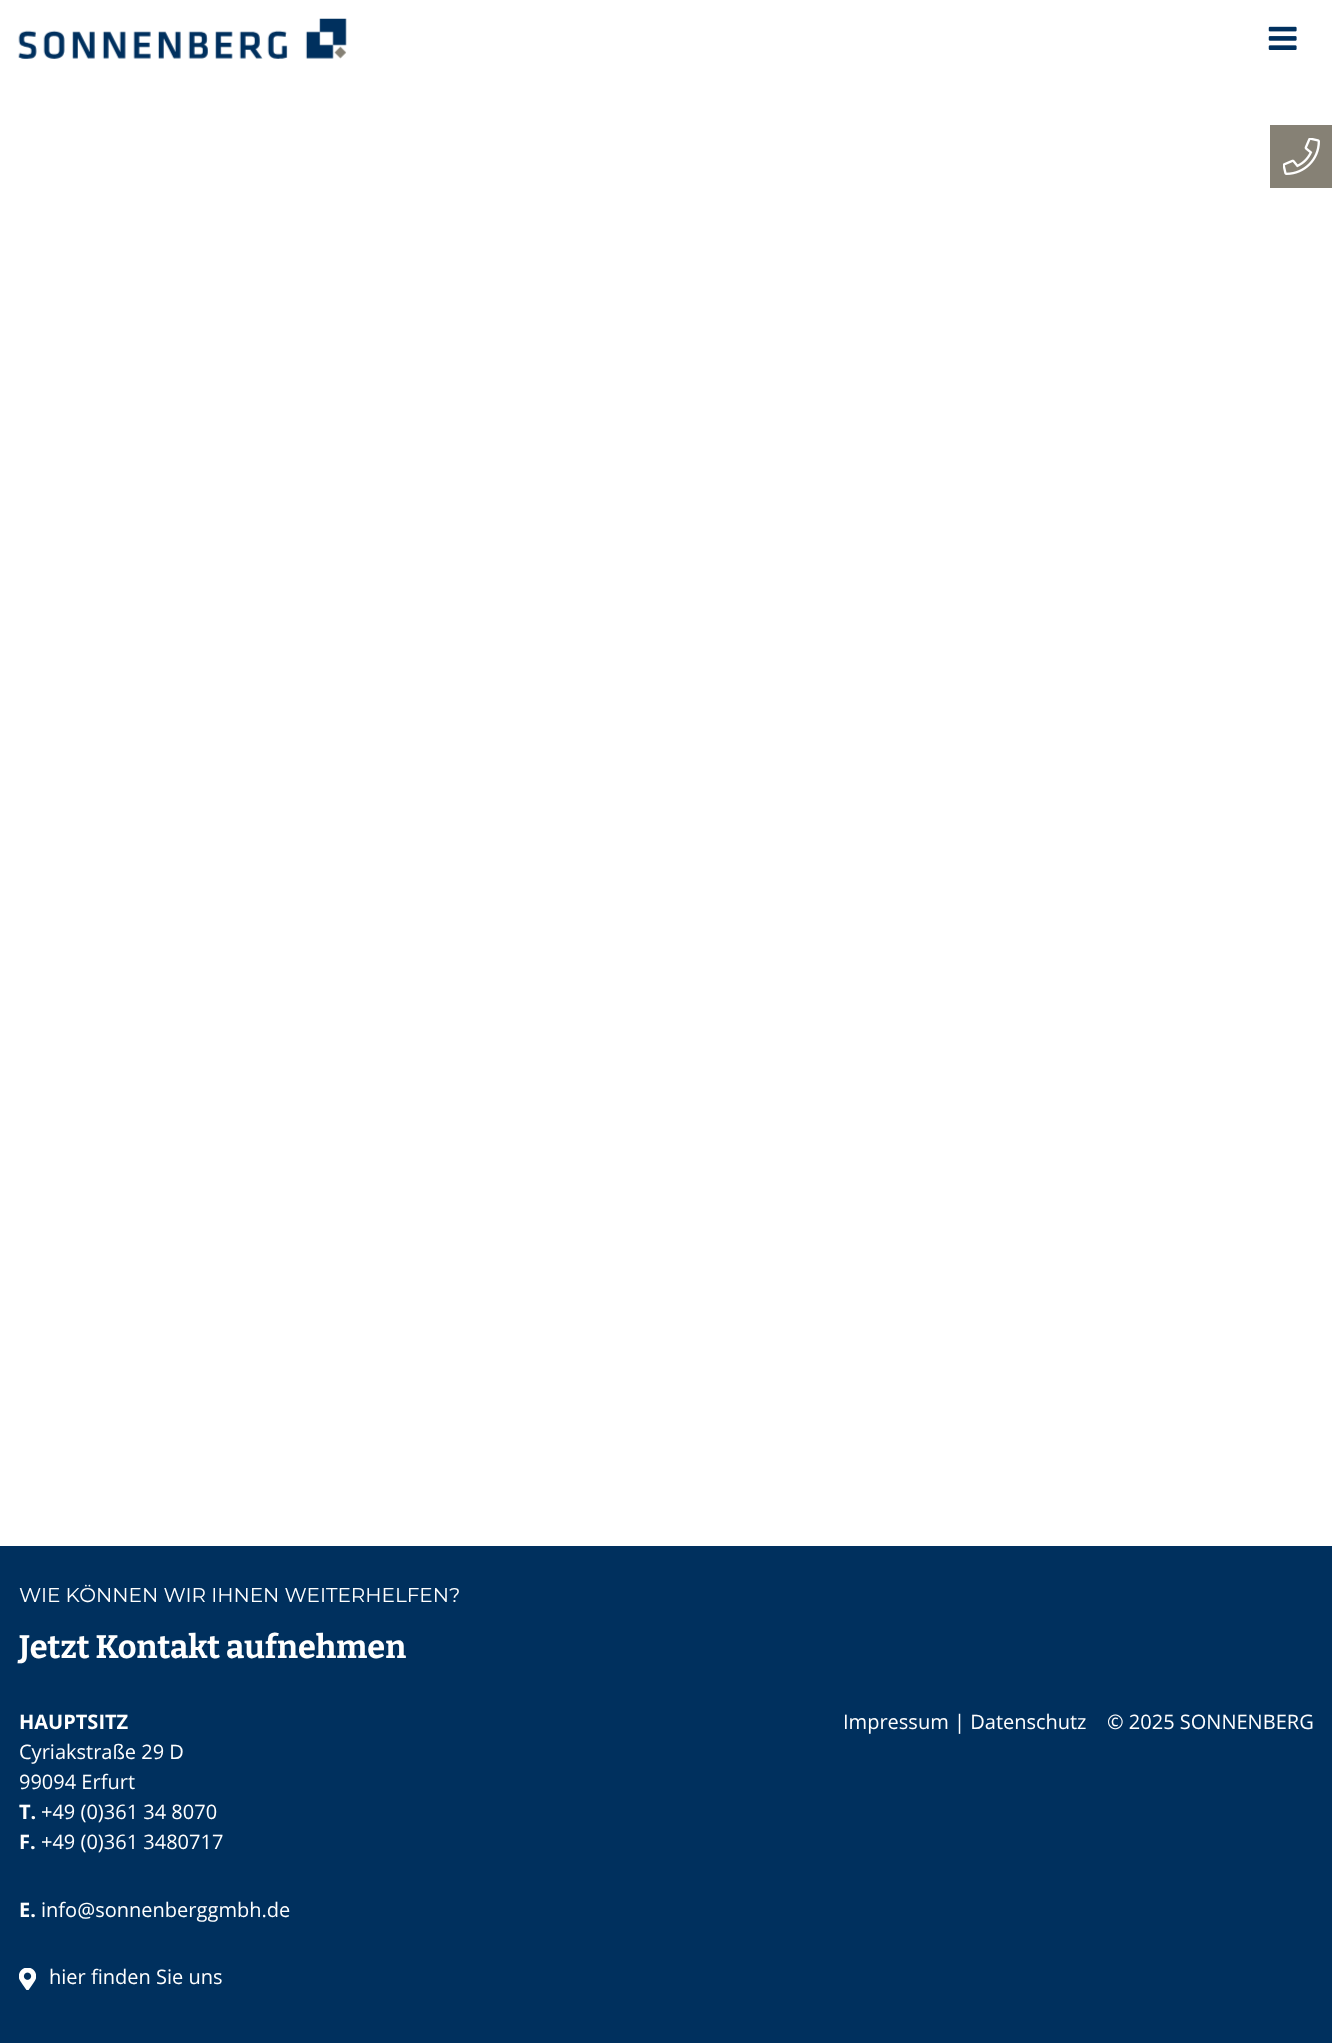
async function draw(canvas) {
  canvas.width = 1332;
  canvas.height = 2043;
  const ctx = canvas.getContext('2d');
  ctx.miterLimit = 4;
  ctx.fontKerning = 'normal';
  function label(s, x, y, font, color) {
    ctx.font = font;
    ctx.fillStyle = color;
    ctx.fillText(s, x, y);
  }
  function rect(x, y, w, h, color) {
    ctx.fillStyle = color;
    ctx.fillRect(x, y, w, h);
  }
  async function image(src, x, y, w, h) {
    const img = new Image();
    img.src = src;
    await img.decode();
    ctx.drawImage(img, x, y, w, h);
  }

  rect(0, 0, 1332, 2043, '#fff');
  await image('assets/img1.png', 18, 18, 329, 41);
  await image('assets/img2.png', 1268, 26, 29, 24);
  rect(1270, 125, 62, 63, '#868175');
  await image('assets/img3.png', 1283, 138, 37, 37);
  rect(0, 1546, 1332, 497, '#00305e');
  label('WIE KÖNNEN WIR IHNEN WEITERHELFEN?', 19, 1602, '20px Montserrat', '#fff');
  label('Jetzt Kontakt aufnehmen', 19, 1658, '100 32.5px Bitter', '#fff');
  label('HAUPTSITZ', 19, 1729, 'bold 20px Open Sans', '#fff');
  label('Cyriakstraße 29 D', 19, 1759, '20px Open Sans', '#fff');
  label('99094 Erfurt', 19, 1789, '20px Open Sans', '#fff');
  label('T.', 19, 1819, 'bold 20px Open Sans', '#fff');
  label('+49 (0)361 34 8070', 41, 1819, '20px Open Sans', '#fff');
  label('F.', 19, 1849, 'bold 20px Open Sans', '#fff');
  label('+49 (0)361 3480717', 41, 1849, '20px Open Sans', '#fff');
  label('E.', 19, 1917, 'bold 20px Open Sans', '#fff');
  label('info@sonnenberggmbh.de', 41, 1917, '20px Open Sans', '#fff');
  await image('assets/img4.png', 19, 1968, 17, 22);
  label('hier finden Sie uns', 49, 1984, '20px Open Sans', '#fff');
  label('Impressum | Datenschutz', 843, 1729, '20px Open Sans', '#fff');
  label('© 2025 SONNENBERG', 1107, 1729, '20px Open Sans', '#fff');
}

draw(document.querySelector('canvas'));
